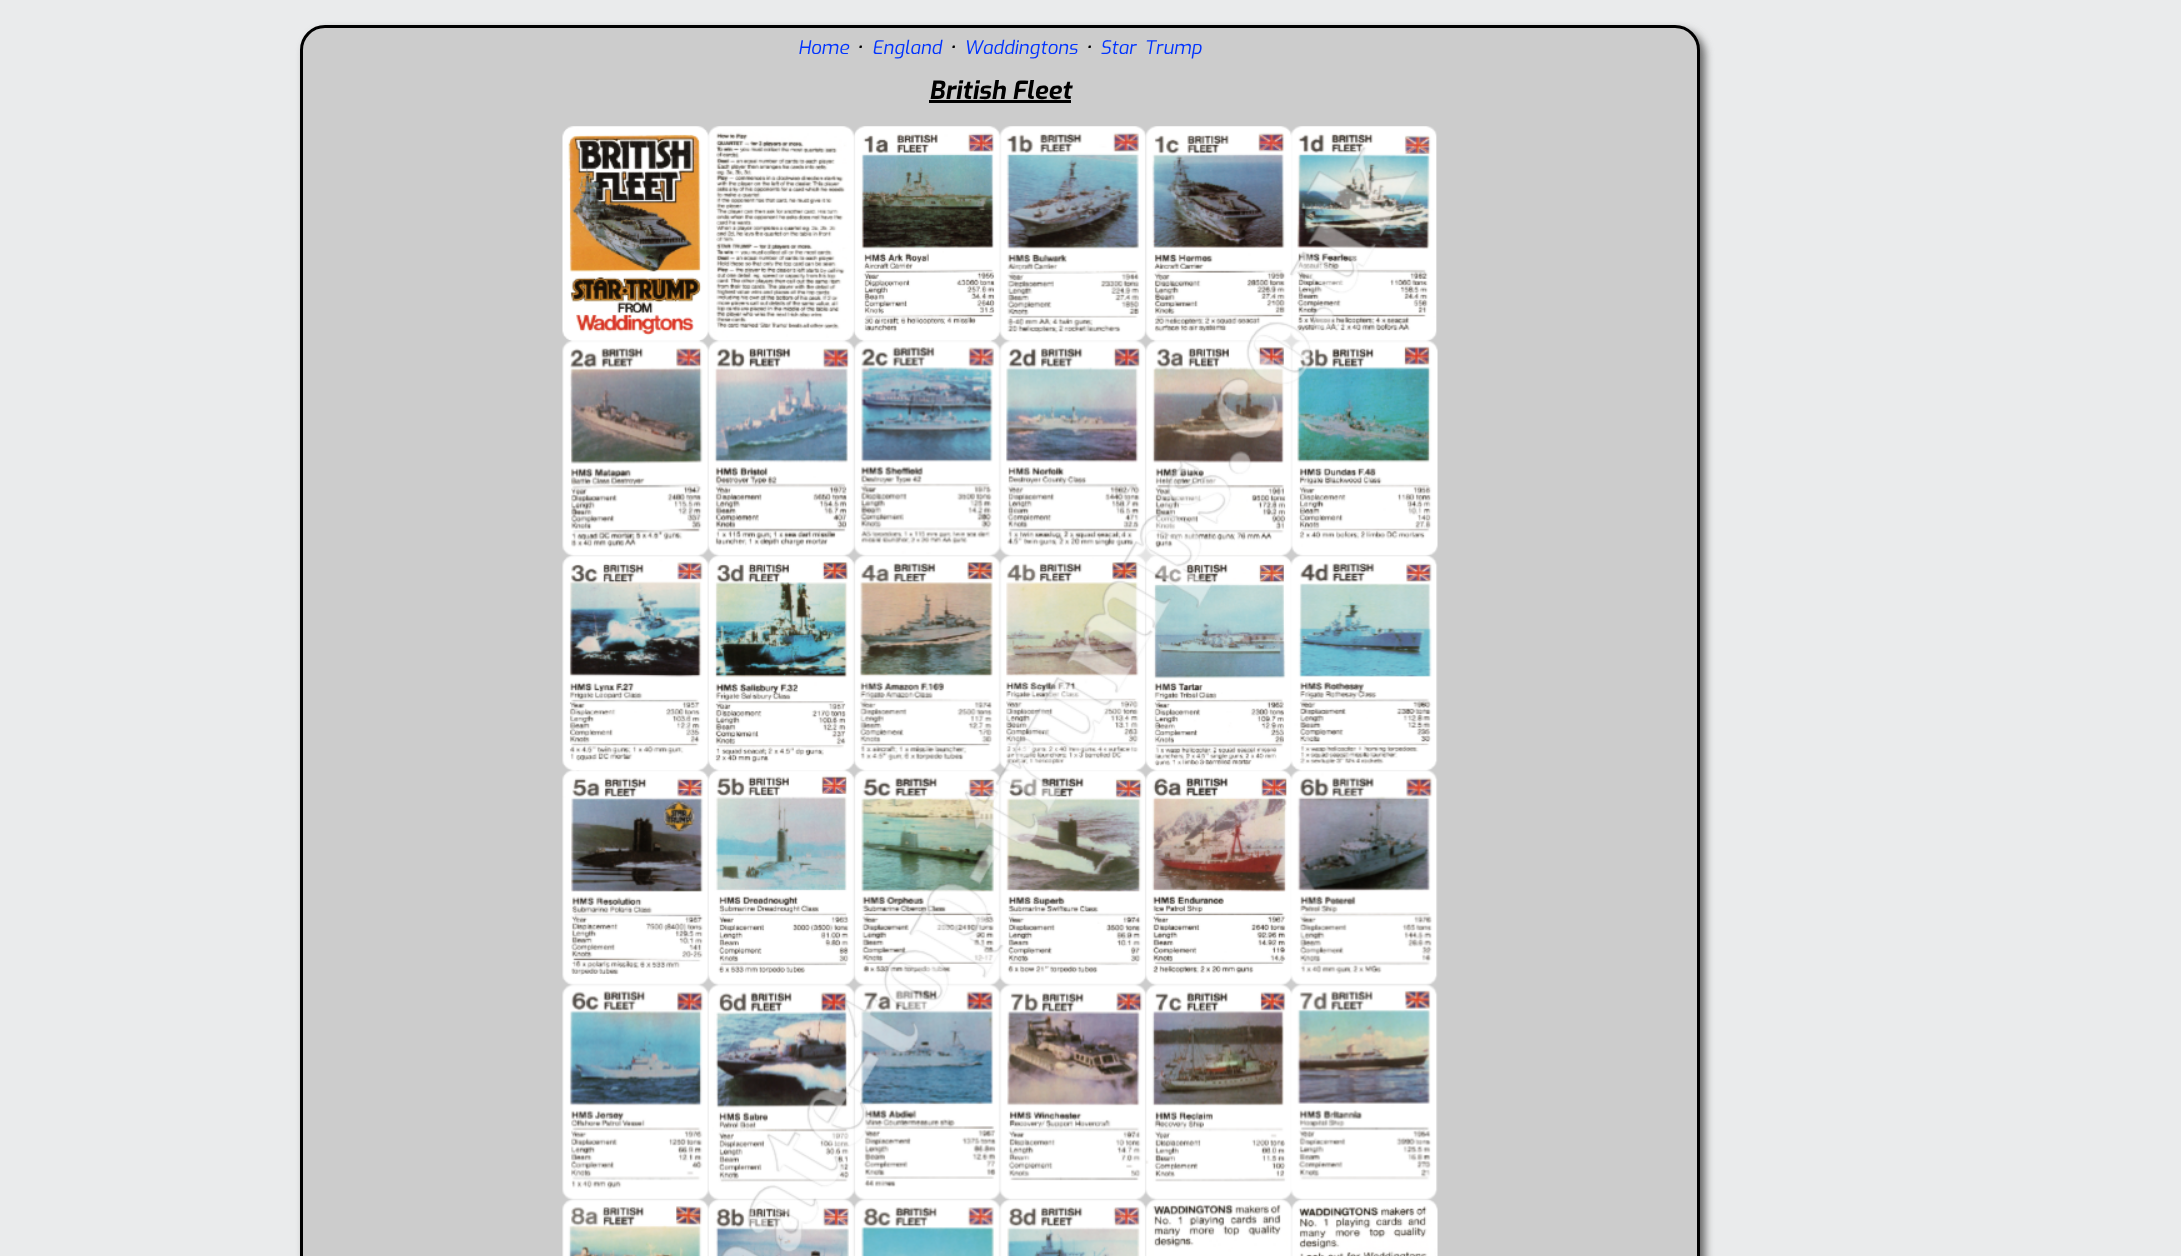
async function draw(canvas) {
  canvas.width = 2181;
  canvas.height = 1256;
  const ctx = canvas.getContext('2d');
  ctx.miterLimit = 4;
  ctx.fontKerning = 'normal';
  function label(s, x, y, font, color) {
    ctx.font = font;
    ctx.fillStyle = color;
    ctx.fillText(s, x, y);
  }
  function rect(x, y, w, h, color) {
    ctx.fillStyle = color;
    ctx.fillRect(x, y, w, h);
  }
  async function image(src, x, y, w, h) {
    const img = new Image();
    img.src = src;
    await img.decode();
    ctx.drawImage(img, x, y, w, h);
  }

  rect(0, 0, 2181, 1256, '#eaebec');
  ctx.fillStyle = '#666';
  ctx.filter = 'blur(4.5px)';
  ctx.beginPath();
  ctx.roundRect(305, 30, 1400, 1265, 25);
  ctx.fill();
  ctx.filter = 'none';
  ctx.fillStyle = '#ccc';
  ctx.beginPath();
  ctx.roundRect(301.5, 26.5, 1397, 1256, 23.5);
  ctx.fill();
  ctx.strokeStyle = '#000';
  ctx.lineWidth = 3;
  ctx.stroke();
  label('Home', 798, 54, 'italic 18.75px Exo', '#03f');
  label('•', 857, 54, 'italic 18.75px Exo', '#000');
  label('England', 872, 54, 'italic 18.75px Exo', '#03f');
  label('•', 950, 54, 'italic 18.75px Exo', '#000');
  label('Waddingtons', 964, 54, 'italic 18.75px Exo', '#03f');
  label('•', 1086, 54, 'italic 18.75px Exo', '#000');
  ctx.wordSpacing = '4px';
  label('Star Trump', 1100, 54, 'italic 18.75px Exo', '#03f');
  ctx.wordSpacing = '0px';
  label('British Fleet', 929, 99, 'italic bold 25px Exo', '#000');
  rect(929, 100, 142, 3, '#000');
  await image('assets/img1.png', 562, 126, 876, 1130);
}

draw(document.querySelector('canvas'));
